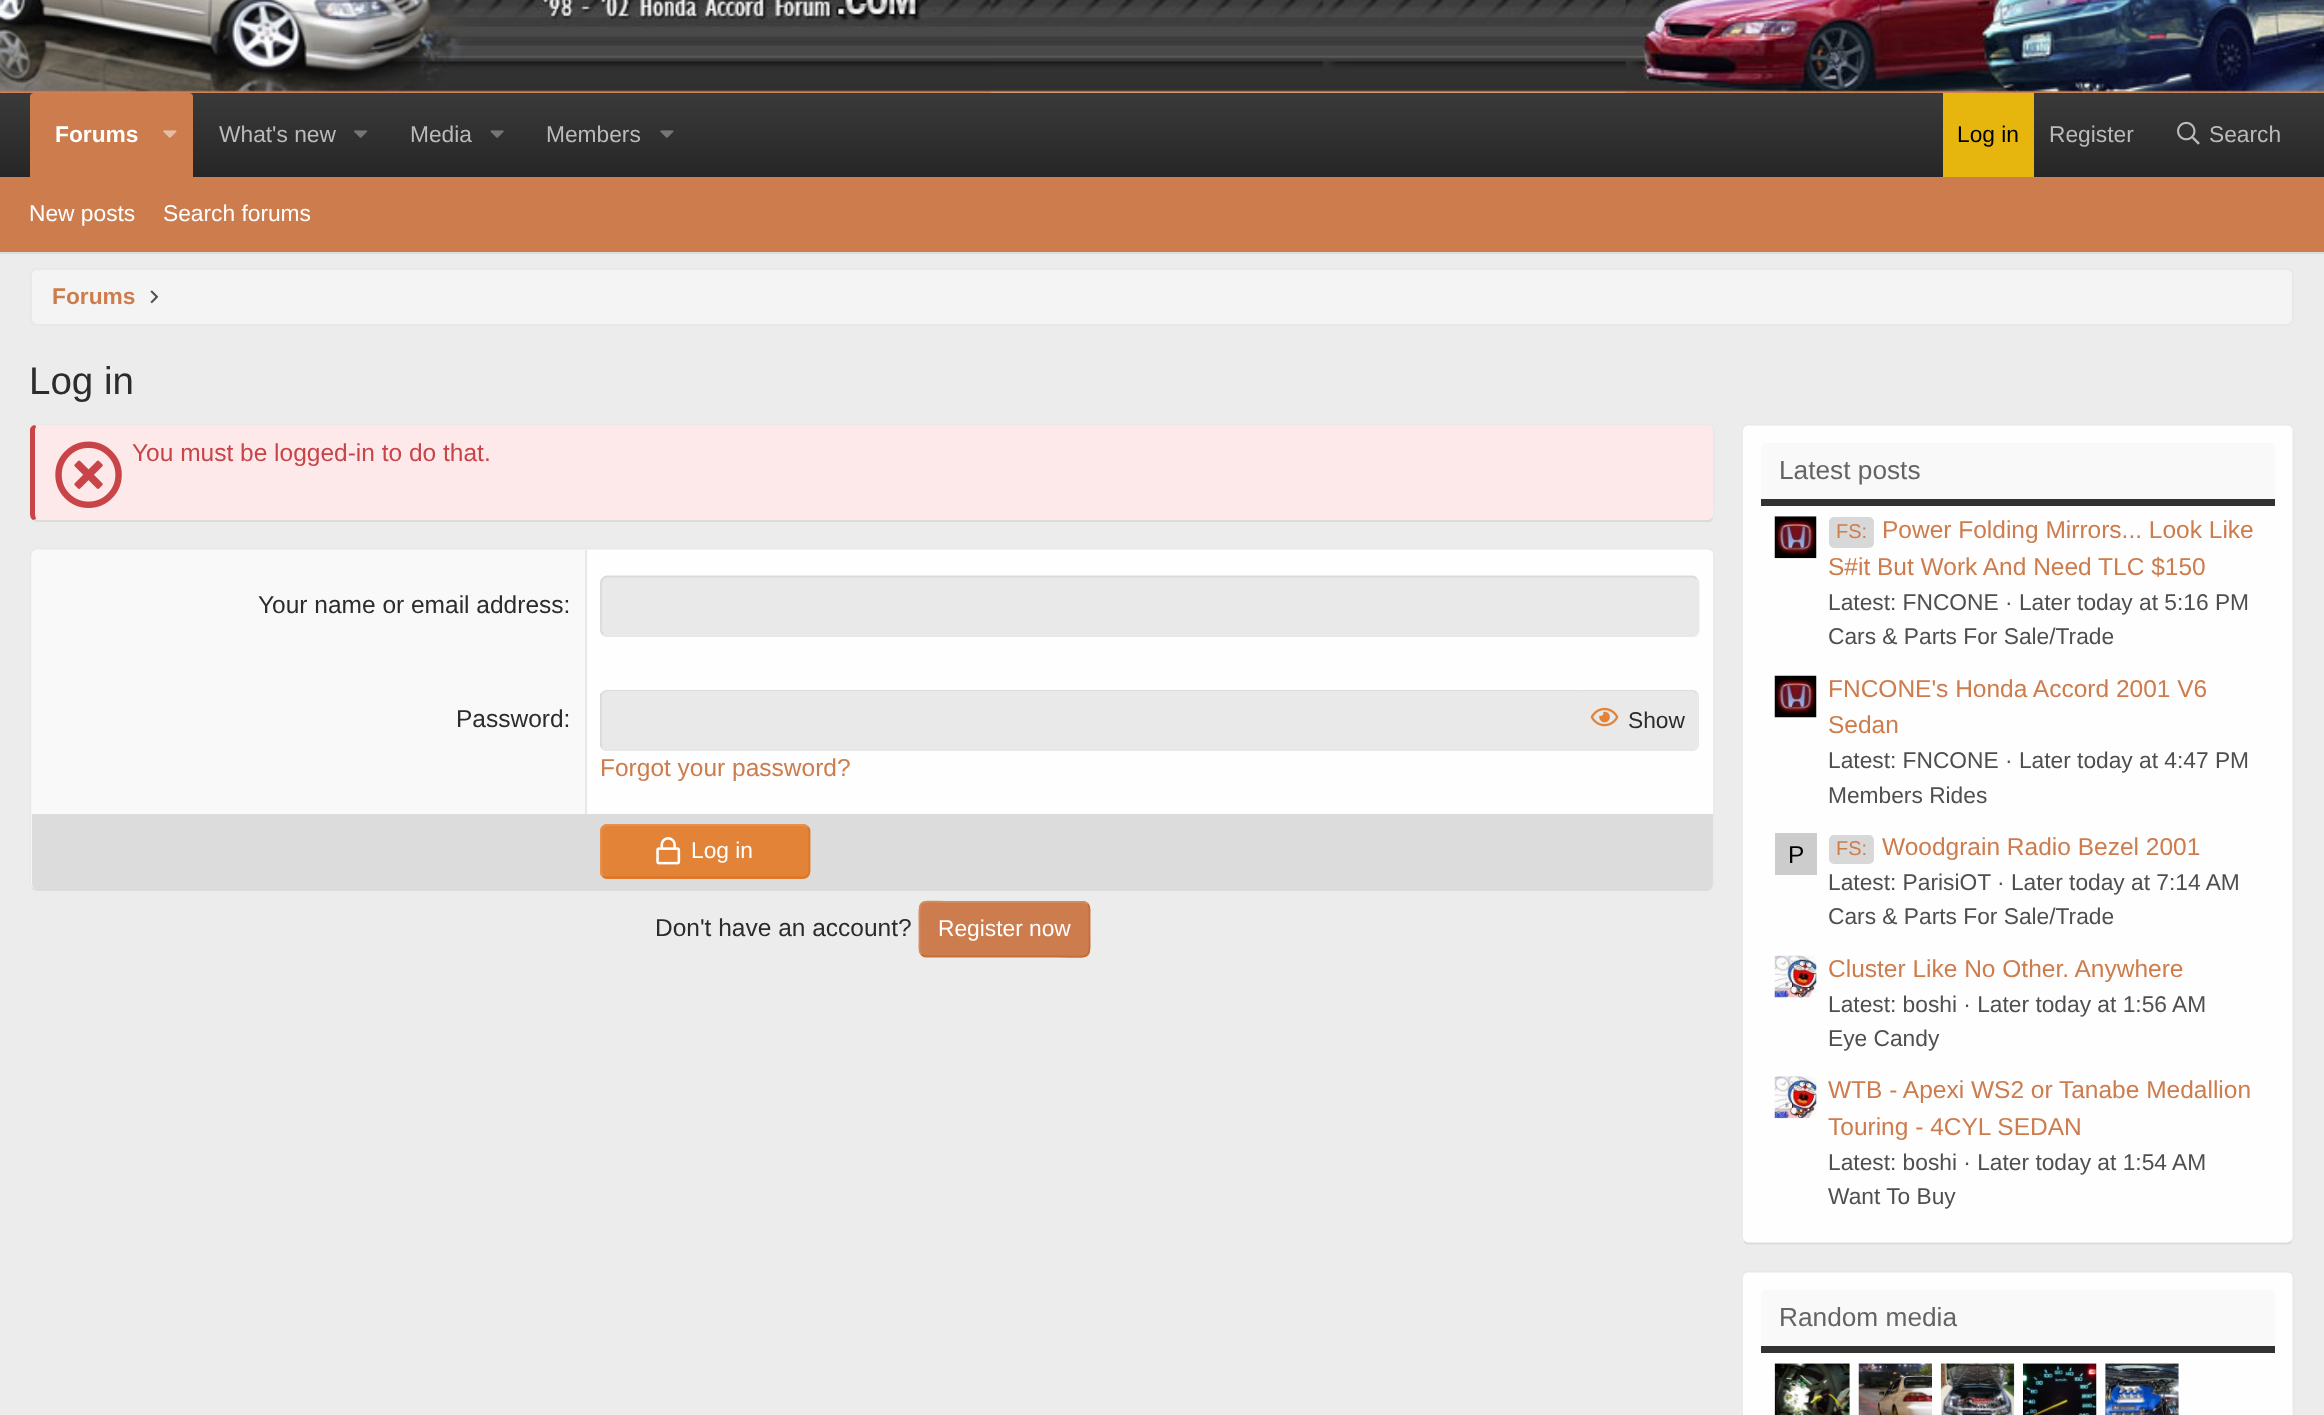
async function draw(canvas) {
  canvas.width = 2324;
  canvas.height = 1415;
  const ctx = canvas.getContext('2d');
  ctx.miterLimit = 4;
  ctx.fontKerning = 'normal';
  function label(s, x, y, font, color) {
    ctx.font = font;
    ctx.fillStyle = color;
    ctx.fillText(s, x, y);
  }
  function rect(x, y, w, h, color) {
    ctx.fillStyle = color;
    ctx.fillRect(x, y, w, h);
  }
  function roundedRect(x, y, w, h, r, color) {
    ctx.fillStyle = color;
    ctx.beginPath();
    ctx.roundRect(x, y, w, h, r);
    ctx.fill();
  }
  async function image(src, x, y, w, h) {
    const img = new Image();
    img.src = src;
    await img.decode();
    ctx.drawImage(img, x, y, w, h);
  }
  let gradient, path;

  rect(0, 0, 2324, 1415, '#ececec');
  await image('assets/img1.png', 0, 0, 2324, 93);
  await image('assets/img2.png', 0, 0, 991, 93);
  await image('assets/img3.png', 1625, 0, 699, 93);
  gradient = ctx.createLinearGradient(1162, 93, 1162, 177);
  gradient.addColorStop(0, '#3a3a3a');
  gradient.addColorStop(1, '#262626');
  ctx.fillStyle = gradient;
  ctx.fillRect(0, 93, 2324, 84);
  ctx.fillStyle = '#cd7c4d';
  ctx.beginPath();
  ctx.roundRect(30, 93, 163, 84, [4, 4, 0, 0]);
  ctx.fill();
  label('Forums', 55, 142, 'bold 22.75px Liberation Sans', '#fff');
  await image('assets/img4.png', 163, 130, 14, 8);
  label('What\'s new', 219, 142, '22.75px Liberation Sans', '#bababa');
  await image('assets/img5.png', 354, 130, 14, 8);
  label('Media', 410, 142, '22.75px Liberation Sans', '#bababa');
  await image('assets/img6.png', 490, 130, 14, 8);
  label('Members', 546, 142, '22.75px Liberation Sans', '#bababa');
  await image('assets/img7.png', 660, 130, 14, 8);
  rect(1943, 93, 91, 84, '#e6b60e');
  label('Log in', 1957, 142, '22.75px Liberation Sans', '#000');
  label('Register', 2049, 142, '22.75px Liberation Sans', '#bababa');
  await image('assets/img8.png', 2177, 121, 23, 24);
  label('Search', 2209, 142, '22.75px Liberation Sans', '#bababa');
  rect(0, 177, 2324, 75, '#cd7c4d');
  rect(0, 252, 2324, 2, '#dbdbdb');
  label('New posts', 29, 221, '22.75px Liberation Sans', '#fff');
  label('Search forums', 163, 221, '22.75px Liberation Sans', '#fff');
  ctx.fillStyle = '#f4f4f4';
  ctx.beginPath();
  ctx.roundRect(31, 269, 2262, 56, 6);
  ctx.fill();
  ctx.strokeStyle = '#e8e8e8';
  ctx.lineWidth = 2;
  ctx.stroke();
  label('Forums', 52, 304, 'bold 22.75px Liberation Sans', '#cd7c4d');
  await image('assets/img9.png', 150, 290, 9, 14);
  label('Log in', 29, 394, '38.5px Liberation Sans', '#2c2c2c');
  ctx.fillStyle = '#fde9e9';
  path = new Path2D('M37 425H1708C1711 425 1713 428 1713 430V514C1713 517 1711 520 1708 520H37C36 520 35 517 35 514V430C35 428 36 425 37 425Z');
  ctx.fill(path);
  ctx.fillStyle = '#e8e8e8';
  path = new Path2D('M37 424L34 425L36 426L37 425H1708C1710 425 1711 426 1712 427L1713 426C1712 425 1710 424 1708 424Z');
  ctx.fill(path);
  path = new Path2D('M1713 426C1714 427 1715 428 1715 430V514C1715 516 1714 518 1713 520L1712 518C1715 514 1713 501 1713 500V430L1712 427Z');
  ctx.fill(path);
  ctx.fillStyle = '#dbdbdb';
  path = new Path2D('M35 522L33 520L36 519L37 520H1708C1710 520 1711 519 1712 518L1713 520L1710 522Z');
  ctx.fill(path);
  ctx.fillStyle = '#c84448';
  path = new Path2D('M34 425C31 426 30 428 30 430V514C30 516 31 519 33 520L36 519C36 518 35 516 35 514V430C35 429 36 427 36 426Z');
  ctx.fill(path);
  await image('assets/img10.png', 55, 441, 67, 67);
  label('You must be logged-in to do that.', 132, 461, '24.5px Liberation Sans', '#c84448');
  roundedRect(30, 548, 1685, 343, 7, '#fefefe');
  path = new Path2D('M1712.5 888C1711 889 1709.5 890 1708 890H37C35 890 33.5 889 32.5 888');
  ctx.strokeStyle = '#dbdbdb';
  ctx.lineWidth = 1.8;
  ctx.stroke(path);
  path = new Path2D('M32.5 888C31.5 887 30.5 885.5 30.5 884V555C30.5 553 31.5 551.5 32.5 550.5C33.5 549.5 35 548.5 37 548.5H1708C1709.5 548.5 1711 549.5 1712.5 550.5C1713.5 551.5 1714 553 1714 555V884C1714 885.5 1713.5 887 1712.5 888');
  ctx.strokeStyle = '#e8e8e8';
  ctx.stroke(path);
  ctx.fillStyle = '#f9f9f9';
  ctx.beginPath();
  ctx.roundRect(32, 550, 554, 113, [5, 0, 0, 0]);
  ctx.fill();
  rect(585, 550, 2, 264, '#e8e8e8');
  label('Your name or email address:', 258, 613, '24.5px Liberation Sans', '#2c2c2c');
  roundedRect(600, 576, 1099, 61, 7, '#e9e9e9');
  path = new Path2D('M1696.5 578.5C1697.5 579.5 1698.5 581 1698.5 583V630C1698.5 631.5 1697.5 633 1696.5 634.5C1695.5 635.5 1694 636 1692 636H607C605.5 636 604 635.5 603 634.5');
  ctx.stroke(path);
  path = new Path2D('M603 634.5C602 633 601 631.5 601 630V583C601 581 602 579.5 603 578.5C604 577.5 605.5 576.5 607 576.5H1692C1694 576.5 1695.5 577.5 1696.5 578.5');
  ctx.strokeStyle = '#dbdbdb';
  ctx.stroke(path);
  rect(32, 663, 553, 151, '#f9f9f9');
  label('Password:', 456, 727, '24.5px Liberation Sans', '#2c2c2c');
  ctx.fillStyle = '#e9e9e9';
  ctx.beginPath();
  ctx.roundRect(600, 690, 977, 61, [7, 0, 0, 7]);
  ctx.fill();
  ctx.fillStyle = '#dbdbdb';
  path = new Path2D('M607 690H1577V691H607C606 691 604 692 603 693L602 692C604 691 605 690 607 690Z');
  ctx.fill(path);
  ctx.fillStyle = '#e8e8e8';
  path = new Path2D('M1577 751H605L602 749L603 748C604 748 606 749 607 749H1577Z');
  ctx.fill(path);
  ctx.fillStyle = '#dbdbdb';
  path = new Path2D('M603 748L602 749L600 746V694L602 692L603 693C603 694 602 695 602 696V744C602 746 602 747 603 748Z');
  ctx.fill(path);
  ctx.fillStyle = '#e9e9e9';
  ctx.beginPath();
  ctx.roundRect(1577, 690, 122, 61, [0, 7, 7, 0]);
  ctx.fill();
  ctx.fillStyle = '#dbdbdb';
  path = new Path2D('M1697 692C1696 691 1694 690 1692 690H1577L1578 691H1693L1696 693Z');
  ctx.fill(path);
  ctx.fillStyle = '#e8e8e8';
  path = new Path2D('M1697 692C1698 693 1699 694 1699 696V744C1699 746 1698 748 1697 749L1696 748C1697 747 1698 746 1698 744V696C1698 695 1697 694 1696 693Z');
  ctx.fill(path);
  path = new Path2D('M1577 751L1578 749H1692C1694 749 1695 748 1696 748L1697 749L1694 751Z');
  ctx.fill(path);
  path = new Path2D('M1577 690V750L1578 749V691Z');
  ctx.fill(path);
  await image('assets/img11.png', 1590, 707, 29, 20);
  label('Show', 1628, 728, '22.75px Liberation Sans', '#2c2c2c');
  label('Forgot your password?', 600, 776, '24.5px Liberation Sans', '#cd7c4d');
  ctx.fillStyle = '#d8d8d8e6';
  ctx.beginPath();
  ctx.roundRect(32, 814, 1681, 75, [0, 0, 5, 5]);
  ctx.fill();
  roundedRect(600, 824, 210, 55, 7, '#e38337');
  path = new Path2D('M807.5 827C808.5 828 809.5 829.5 809.5 831V871.5C809.5 873 808.5 874.5 807.5 876C806.5 877 805 877.5 803 877.5H607C605.5 877.5 604 877 603 876');
  ctx.strokeStyle = '#e07521';
  ctx.stroke(path);
  path = new Path2D('M603 876C602 874.5 601 873 601 871.5V831C601 829.5 602 828 603 827C604 826 605.5 825 607 825H803C805 825 806.5 826 807.5 827');
  ctx.strokeStyle = '#e6914d';
  ctx.stroke(path);
  await image('assets/img12.png', 656, 837, 25, 28);
  label('Log in', 691, 858, '22.75px Liberation Sans', '#fff');
  label('Don\'t have an account?', 655, 936, '24.5px Liberation Sans', '#2c2c2c');
  roundedRect(919, 901, 171, 56, 7, '#cd7c4d');
  path = new Path2D('M1087.5 904C1090.5 907 1089.5 912 1089.5 915V929C1089.5 962.5 1093.5 956.5 1057 956.5H926C924 956.5 922.5 955.5 921.5 954.5');
  ctx.strokeStyle = '#c76d39';
  ctx.stroke(path);
  path = new Path2D('M921.5 954.5C918.5 951.5 919.5 946.5 919.5 943V929C919.5 896 915.5 902 952 902H1083C1085 902 1086.5 903 1087.5 904');
  ctx.strokeStyle = '#d38b61';
  ctx.stroke(path);
  label('Register now', 938, 936, '22.75px Liberation Sans', '#fff');
  roundedRect(1741, 424, 553, 820, 7, '#fefefe');
  path = new Path2D('M2291.5 1241.5C2290.5 1242.5 2289 1243.5 2287 1243.5H1748C1746.5 1243.5 1745 1242.5 1744 1241.5');
  ctx.strokeStyle = '#dbdbdb';
  ctx.stroke(path);
  path = new Path2D('M1744 1241.5C1743 1240.5 1742 1239 1742 1237V430.5C1742 429 1743 427.5 1744 426C1745 425 1746.5 424.5 1748 424.5H2287C2289 424.5 2290.5 425 2291.5 426C2292.5 427.5 2293.5 429 2293.5 430.5V1237C2293.5 1239 2292.5 1240.5 2291.5 1241.5');
  ctx.strokeStyle = '#e8e8e8';
  ctx.stroke(path);
  ctx.fillStyle = '#f9f9f9';
  ctx.beginPath();
  ctx.roundRect(1761, 443, 514, 63, [5, 5, 0, 0]);
  ctx.fill();
  rect(1761, 499, 514, 7, '#323232');
  label('Latest posts', 1779, 479, '26.25px Liberation Sans', '#646464');
  await image('assets/img13.png', 1774, 516, 43, 43);
  ctx.fillStyle = '#d8d8d8';
  ctx.beginPath();
  ctx.roundRect(1828, 516, 47, 33, 6);
  ctx.fill();
  ctx.strokeStyle = '#fff';
  ctx.lineWidth = 2;
  ctx.stroke();
  label('FS:', 1836, 538, '20px Liberation Sans', '#cd7c4d');
  label('Power Folding Mirrors... Look Like', 1882, 538, '24.5px Liberation Sans', '#cd7c4d');
  label('S#it But Work And Need TLC $150', 1828, 575, '24.5px Liberation Sans', '#cd7c4d');
  label('Latest: FNCONE · Later today at 5:16 PM', 1828, 610, '22.75px Liberation Sans', '#4f4f4f');
  label('Cars & Parts For Sale/Trade', 1828, 644, '22.75px Liberation Sans', '#4f4f4f');
  await image('assets/img14.png', 1774, 675, 43, 43);
  label('FNCONE\'s Honda Accord 2001 V6', 1828, 697, '24.5px Liberation Sans', '#cd7c4d');
  label('Sedan', 1828, 733, '24.5px Liberation Sans', '#cd7c4d');
  label('Latest: FNCONE · Later today at 4:47 PM', 1828, 768, '22.75px Liberation Sans', '#4f4f4f');
  label('Members Rides', 1828, 803, '22.75px Liberation Sans', '#4f4f4f');
  rect(1775, 833, 42, 42, '#ccc');
  label('P', 1788, 863, '24.5px Liberation Sans', '#000');
  ctx.fillStyle = '#d8d8d8';
  ctx.beginPath();
  ctx.roundRect(1828, 834, 47, 31, 6);
  ctx.fill();
  ctx.stroke();
  label('FS:', 1836, 855, '20px Liberation Sans', '#cd7c4d');
  label('Woodgrain Radio Bezel 2001', 1882, 855, '24.5px Liberation Sans', '#cd7c4d');
  label('Latest: ParisiOT · Later today at 7:14 AM', 1828, 890, '22.75px Liberation Sans', '#4f4f4f');
  label('Cars & Parts For Sale/Trade', 1828, 924, '22.75px Liberation Sans', '#4f4f4f');
  await image('assets/img15.png', 1774, 955, 43, 43);
  label('Cluster Like No Other. Anywhere', 1828, 977, '24.5px Liberation Sans', '#cd7c4d');
  label('Latest: boshi · Later today at 1:56 AM', 1828, 1012, '22.75px Liberation Sans', '#4f4f4f');
  label('Eye Candy', 1828, 1046, '22.75px Liberation Sans', '#4f4f4f');
  await image('assets/img16.png', 1774, 1076, 43, 43);
  label('WTB - Apexi WS2 or Tanabe Medallion', 1828, 1098, '24.5px Liberation Sans', '#cd7c4d');
  label('Touring - 4CYL SEDAN', 1828, 1135, '24.5px Liberation Sans', '#cd7c4d');
  label('Latest: boshi · Later today at 1:54 AM', 1828, 1170, '22.75px Liberation Sans', '#4f4f4f');
  label('Want To Buy', 1828, 1204, '22.75px Liberation Sans', '#4f4f4f');
  roundedRect(1741, 1271, 553, 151, 7, '#fefefe');
  path = new Path2D('M1744 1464C1743 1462.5 1742 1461 1742 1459.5V1277.5C1742 1276 1743 1274.5 1744 1273C1745 1272 1746.5 1271.5 1748 1271.5H2287C2289 1271.5 2290.5 1272 2291.5 1273C2292.5 1274.5 2293.5 1276 2293.5 1277.5V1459.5C2293.5 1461 2292.5 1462.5 2291.5 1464');
  ctx.strokeStyle = '#e8e8e8';
  ctx.lineWidth = 1.8;
  ctx.stroke(path);
  ctx.fillStyle = '#f9f9f9';
  ctx.beginPath();
  ctx.roundRect(1761, 1290, 514, 63, [5, 5, 0, 0]);
  ctx.fill();
  rect(1761, 1346, 514, 7, '#323232');
  label('Random media', 1779, 1326, '26.25px Liberation Sans', '#646464');
  await image('assets/img17.png', 1774, 1363, 76, 52);
  await image('assets/img18.png', 1858, 1363, 74, 52);
  await image('assets/img19.png', 1940, 1363, 75, 52);
  await image('assets/img20.png', 2023, 1363, 74, 52);
  await image('assets/img21.png', 2105, 1363, 74, 52);
}

draw(document.querySelector('canvas'));
